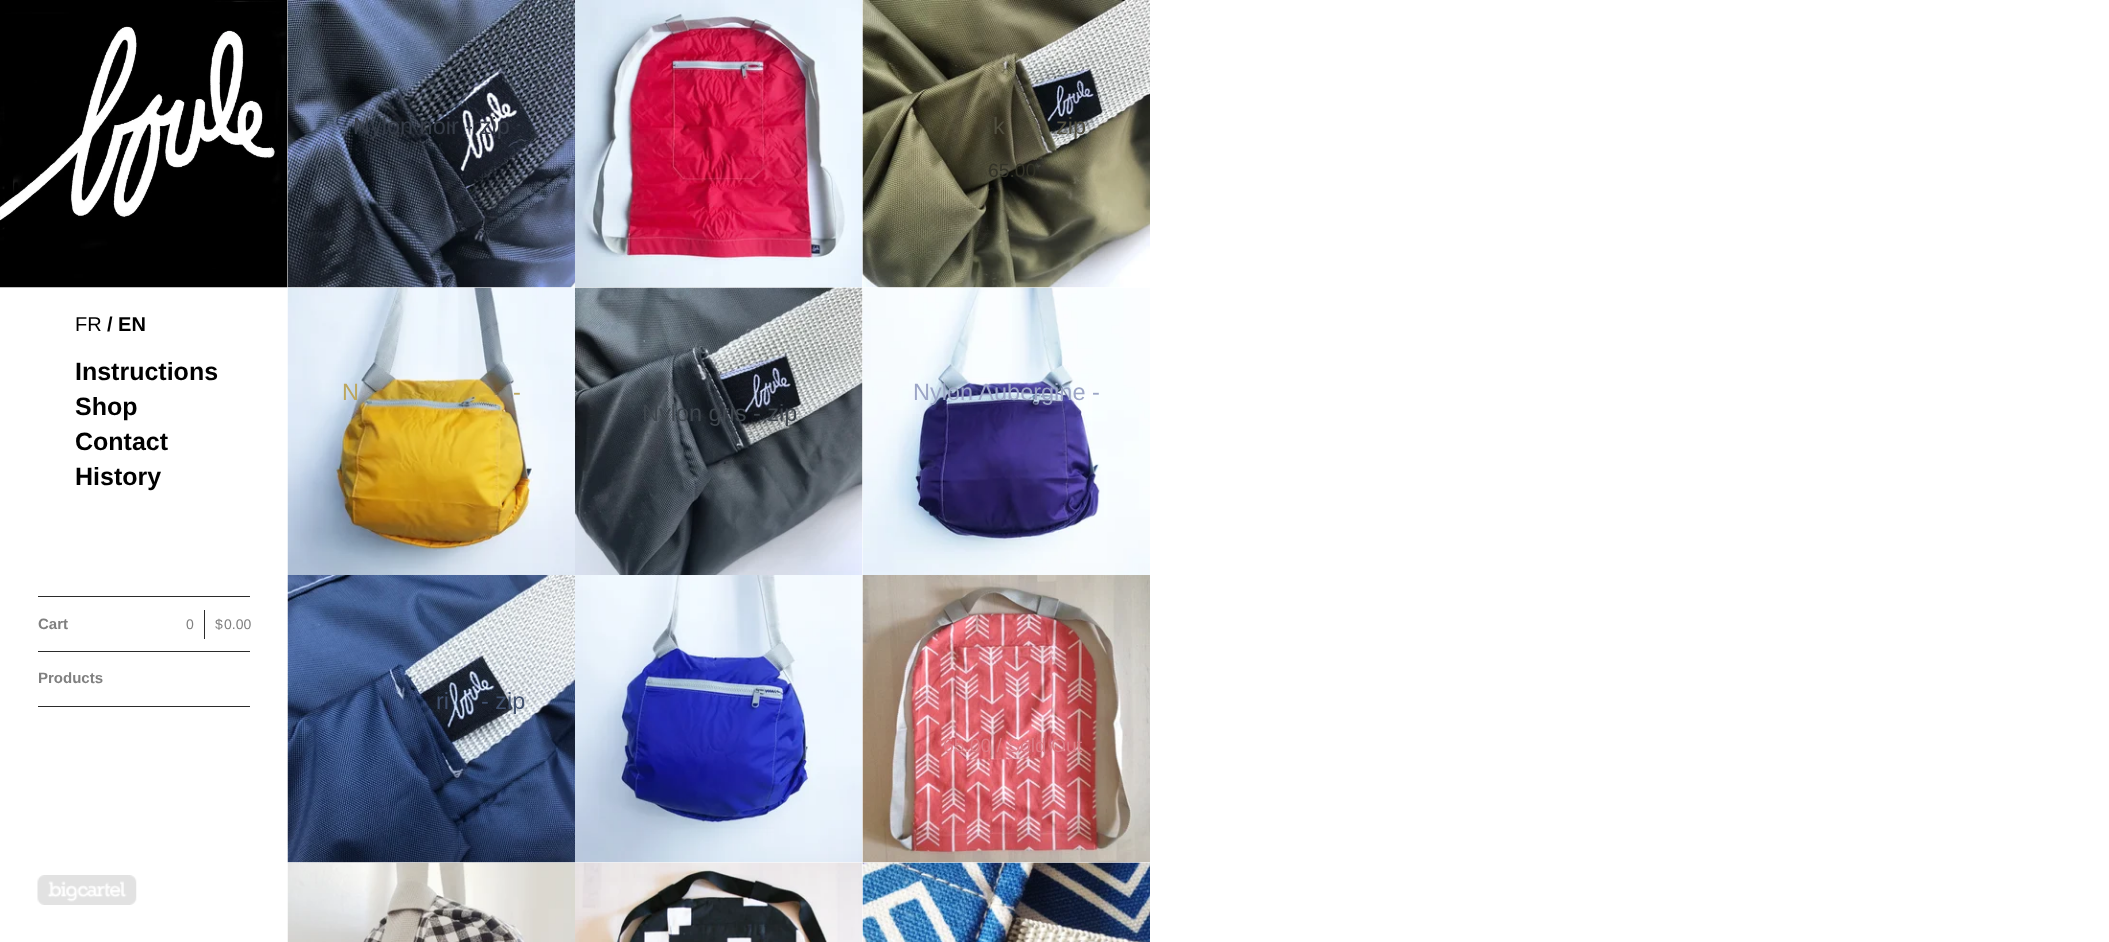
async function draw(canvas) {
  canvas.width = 2109;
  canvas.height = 942;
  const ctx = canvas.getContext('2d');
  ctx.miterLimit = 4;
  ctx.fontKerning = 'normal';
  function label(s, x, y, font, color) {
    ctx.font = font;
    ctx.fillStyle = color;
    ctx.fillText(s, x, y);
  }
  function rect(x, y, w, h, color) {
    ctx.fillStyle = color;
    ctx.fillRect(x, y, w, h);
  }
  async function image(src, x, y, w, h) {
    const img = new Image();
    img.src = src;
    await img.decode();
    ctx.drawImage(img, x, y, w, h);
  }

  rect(0, 0, 2109, 942, '#fff');
  await image('assets/img3.png', 287, 0, 288, 288);
  await image('assets/img6.png', 287, 287, 288, 288);
  await image('assets/img1.png', 0, 0, 288, 288);
  label('FR', 75, 331, '20px Liberation Sans', '#000');
  label('/ EN', 107, 331, 'bold 20px Liberation Sans', '#000');
  label('Instructions', 75, 380, 'bold 25px Liberation Sans', '#000');
  label('Shop', 75, 415, 'bold 25px Liberation Sans', '#000');
  label('Contact', 75, 450, 'bold 25px Liberation Sans', '#000');
  label('History', 75, 485, 'bold 25px Liberation Sans', '#000');
  rect(38, 596, 212, 1, '#2b2b2b');
  label('Cart', 38, 629, 'bold 15px Liberation Sans', '#808080');
  label('0', 186, 629, '14px Liberation Sans', '#808080');
  rect(204, 610, 1, 29, '#2b2b2b');
  label('$', 215, 629, '14px Liberation Sans', '#808080');
  label('0.00', 224, 629, '14px Liberation Sans', '#808080');
  rect(38, 651, 212, 1, '#2b2b2b');
  label('Products', 38, 683, 'bold 15px Liberation Sans', '#808080');
  rect(38, 706, 212, 1, '#2b2b2b');
  await image('assets/img2.png', 37, 875, 100, 30);
  label('Nylon noir - zip', 353, 134, '23.5px Liberation Sans', '#373d48');
  await image('assets/img4.png', 575, 0, 288, 288);
  await image('assets/img5.png', 862, 0, 288, 288);
  label('k', 993, 134, '23.5px Liberation Sans', '#514f40');
  label('zip', 1056, 134, '23.5px Liberation Sans', '#514f40');
  label('65.00', 988, 177, '19.25px Liberation Sans', '#333328');
  label('N', 342, 400, '23.5px Liberation Sans', '#bca75f');
  label('-', 513, 400, '23.5px Liberation Sans', '#bca75f');
  await image('assets/img8.png', 575, 287, 288, 288);
  await image('assets/img7.png', 862, 287, 288, 288);
  label('Nylon Aubergine -', 913, 400, '23.5px Liberation Sans', '#9ca5c6');
  label('Nylon gris - zip', 642, 421, '23.5px Liberation Sans', '#3f464d');
  label('.', 722, 464, '19.25px Liberation Sans', '#272d35');
  await image('assets/img9.png', 287, 575, 288, 288);
  label('ri', 436, 709, '23.5px Liberation Sans', '#41516e');
  label('- zip', 481, 709, '23.5px Liberation Sans', '#41516e');
  await image('assets/img10.png', 575, 575, 288, 288);
  await image('assets/img11.png', 862, 575, 288, 288);
  label('65.00 / Sold Out', 943, 752, '19.25px Liberation Sans', '#dd7d86');
  await image('assets/img12.png', 287, 862, 288, 80);
  await image('assets/img13.png', 575, 862, 288, 80);
  await image('assets/img14.png', 862, 862, 288, 80);
}

draw(document.querySelector('canvas'));
